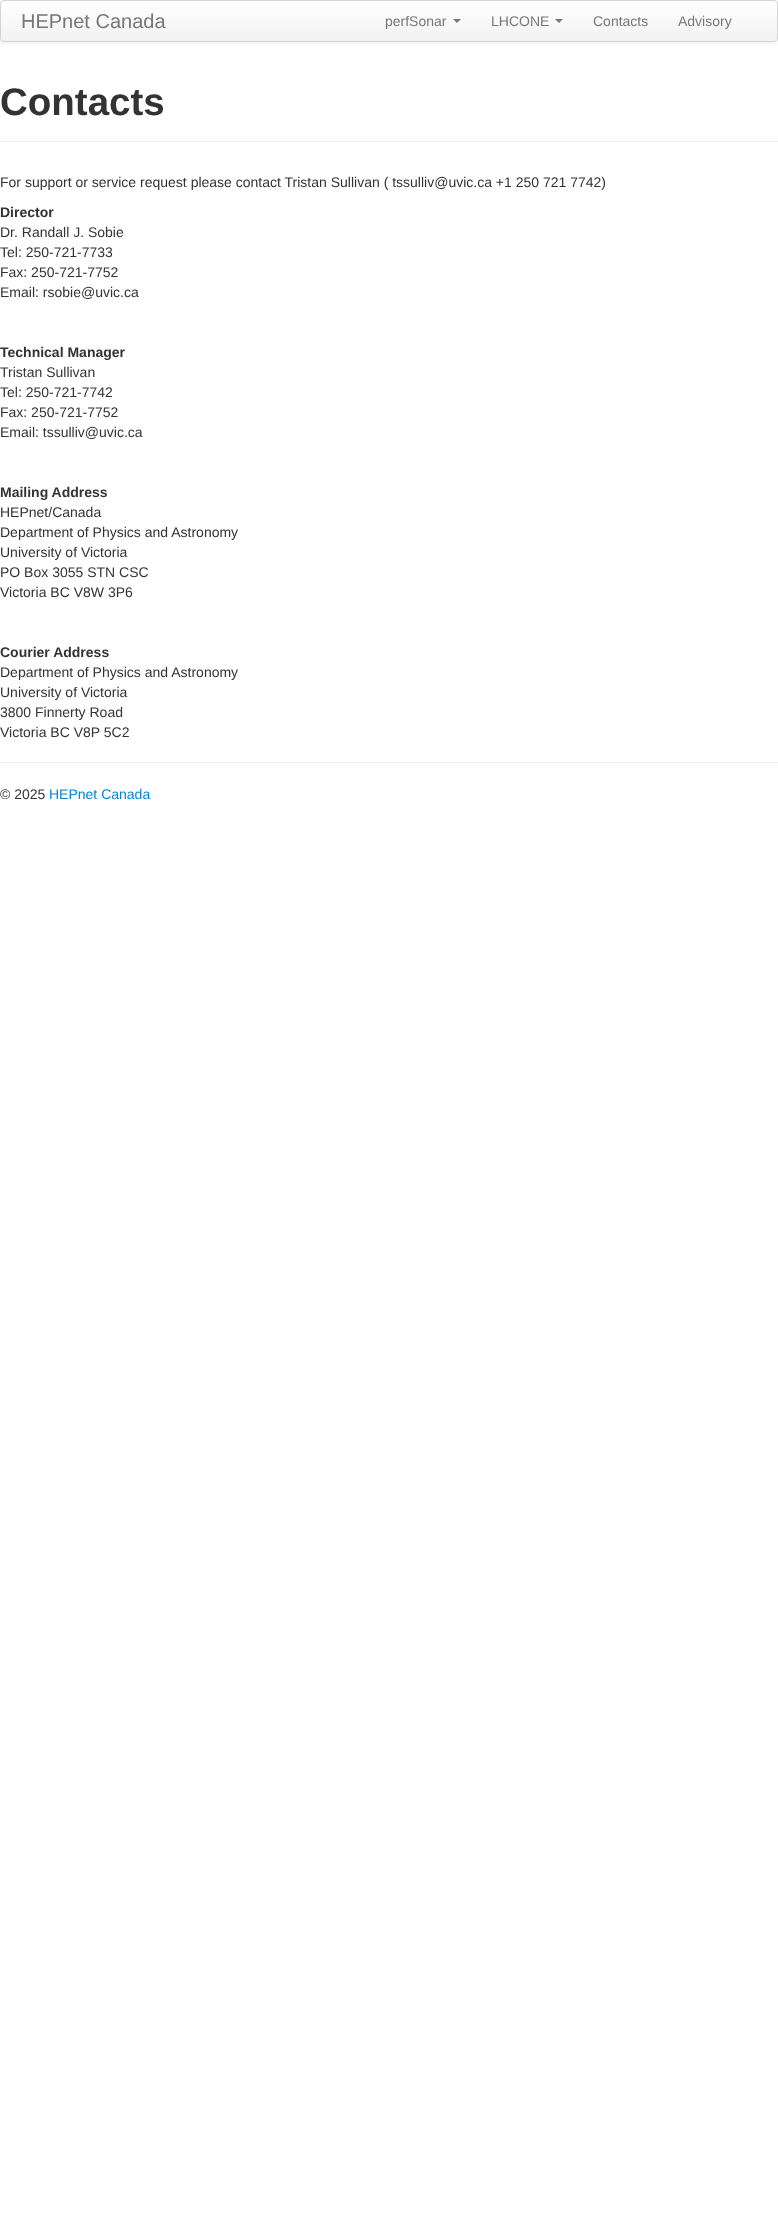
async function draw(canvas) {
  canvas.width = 778;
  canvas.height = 2224;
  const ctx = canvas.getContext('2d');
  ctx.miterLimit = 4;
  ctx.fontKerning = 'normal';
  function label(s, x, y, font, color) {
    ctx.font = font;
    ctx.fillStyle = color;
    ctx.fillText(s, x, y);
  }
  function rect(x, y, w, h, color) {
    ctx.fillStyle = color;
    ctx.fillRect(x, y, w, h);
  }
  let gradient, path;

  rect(0, 0, 778, 2224, '#fff');
  ctx.fillStyle = '#00000012';
  ctx.filter = 'blur(2px)';
  ctx.beginPath();
  ctx.roundRect(0, 1, 778, 42, 4);
  ctx.fill();
  ctx.filter = 'none';
  ctx.save();
  ctx.beginPath();
  ctx.roundRect(0, 0, 778, 42, 4);
  ctx.clip();
  gradient = ctx.createLinearGradient(389, 1, 389, 41);
  gradient.addColorStop(0, '#fff');
  gradient.addColorStop(1, '#f2f2f2');
  ctx.fillStyle = gradient;
  ctx.fillRect(0, 1, 778, 40);
  ctx.restore();
  ctx.beginPath();
  ctx.roundRect(0.5, 0.5, 777, 41, 3.5);
  ctx.strokeStyle = '#d4d4d4';
  ctx.stroke();
  label('HEPnet Canada', 21, 28, '20px Liberation Sans', '#777');
  label('perfSonar', 385, 26, '14px Liberation Sans', '#777');
  path = new Path2D('M453 19H461L457 23Z');
  ctx.fill(path);
  label('LHCONE', 491, 26, '14px Liberation Sans', '#777');
  path = new Path2D('M555 19H563L559 23Z');
  ctx.fill(path);
  label('Contacts', 593, 26, '14px Liberation Sans', '#777');
  label('Advisory', 678, 26, '14px Liberation Sans', '#777');
  rect(0, 141, 778, 1, '#eee');
  label('Contacts', 0, 115, 'bold 38.5px Liberation Sans', '#333');
  label('For support or service request please contact Tristan Sullivan ( tssulliv@uvic.ca +1 250 721 7742)', 0, 187, '14px Liberation Sans', '#333');
  label('Director', 0, 217, 'bold 14px Liberation Sans', '#333');
  label('Dr. Randall J. Sobie', 0, 237, '14px Liberation Sans', '#333');
  label('Tel: 250-721-7733', 0, 257, '14px Liberation Sans', '#333');
  label('Fax: 250-721-7752', 0, 277, '14px Liberation Sans', '#333');
  label('Email: rsobie@uvic.ca', 0, 297, '14px Liberation Sans', '#333');
  label('Technical Manager', 0, 357, 'bold 14px Liberation Sans', '#333');
  label('Tristan Sullivan', 0, 377, '14px Liberation Sans', '#333');
  label('Tel: 250-721-7742', 0, 397, '14px Liberation Sans', '#333');
  label('Fax: 250-721-7752', 0, 417, '14px Liberation Sans', '#333');
  label('Email: tssulliv@uvic.ca', 0, 437, '14px Liberation Sans', '#333');
  label('Mailing Address', 0, 497, 'bold 14px Liberation Sans', '#333');
  label('HEPnet/Canada', 0, 517, '14px Liberation Sans', '#333');
  label('Department of Physics and Astronomy', 0, 537, '14px Liberation Sans', '#333');
  label('University of Victoria', 0, 557, '14px Liberation Sans', '#333');
  label('PO Box 3055 STN CSC', 0, 577, '14px Liberation Sans', '#333');
  label('Victoria BC V8W 3P6', 0, 597, '14px Liberation Sans', '#333');
  label('Courier Address', 0, 657, 'bold 14px Liberation Sans', '#333');
  label('Department of Physics and Astronomy', 0, 677, '14px Liberation Sans', '#333');
  label('University of Victoria', 0, 697, '14px Liberation Sans', '#333');
  label('3800 Finnerty Road', 0, 717, '14px Liberation Sans', '#333');
  label('Victoria BC V8P 5C2', 0, 737, '14px Liberation Sans', '#333');
  rect(0, 762, 778, 1, '#eee');
  label('© 2025', 0, 799, '14px Liberation Sans', '#333');
  label('HEPnet Canada', 49, 799, '14px Liberation Sans', '#08c');
}

draw(document.querySelector('canvas'));
